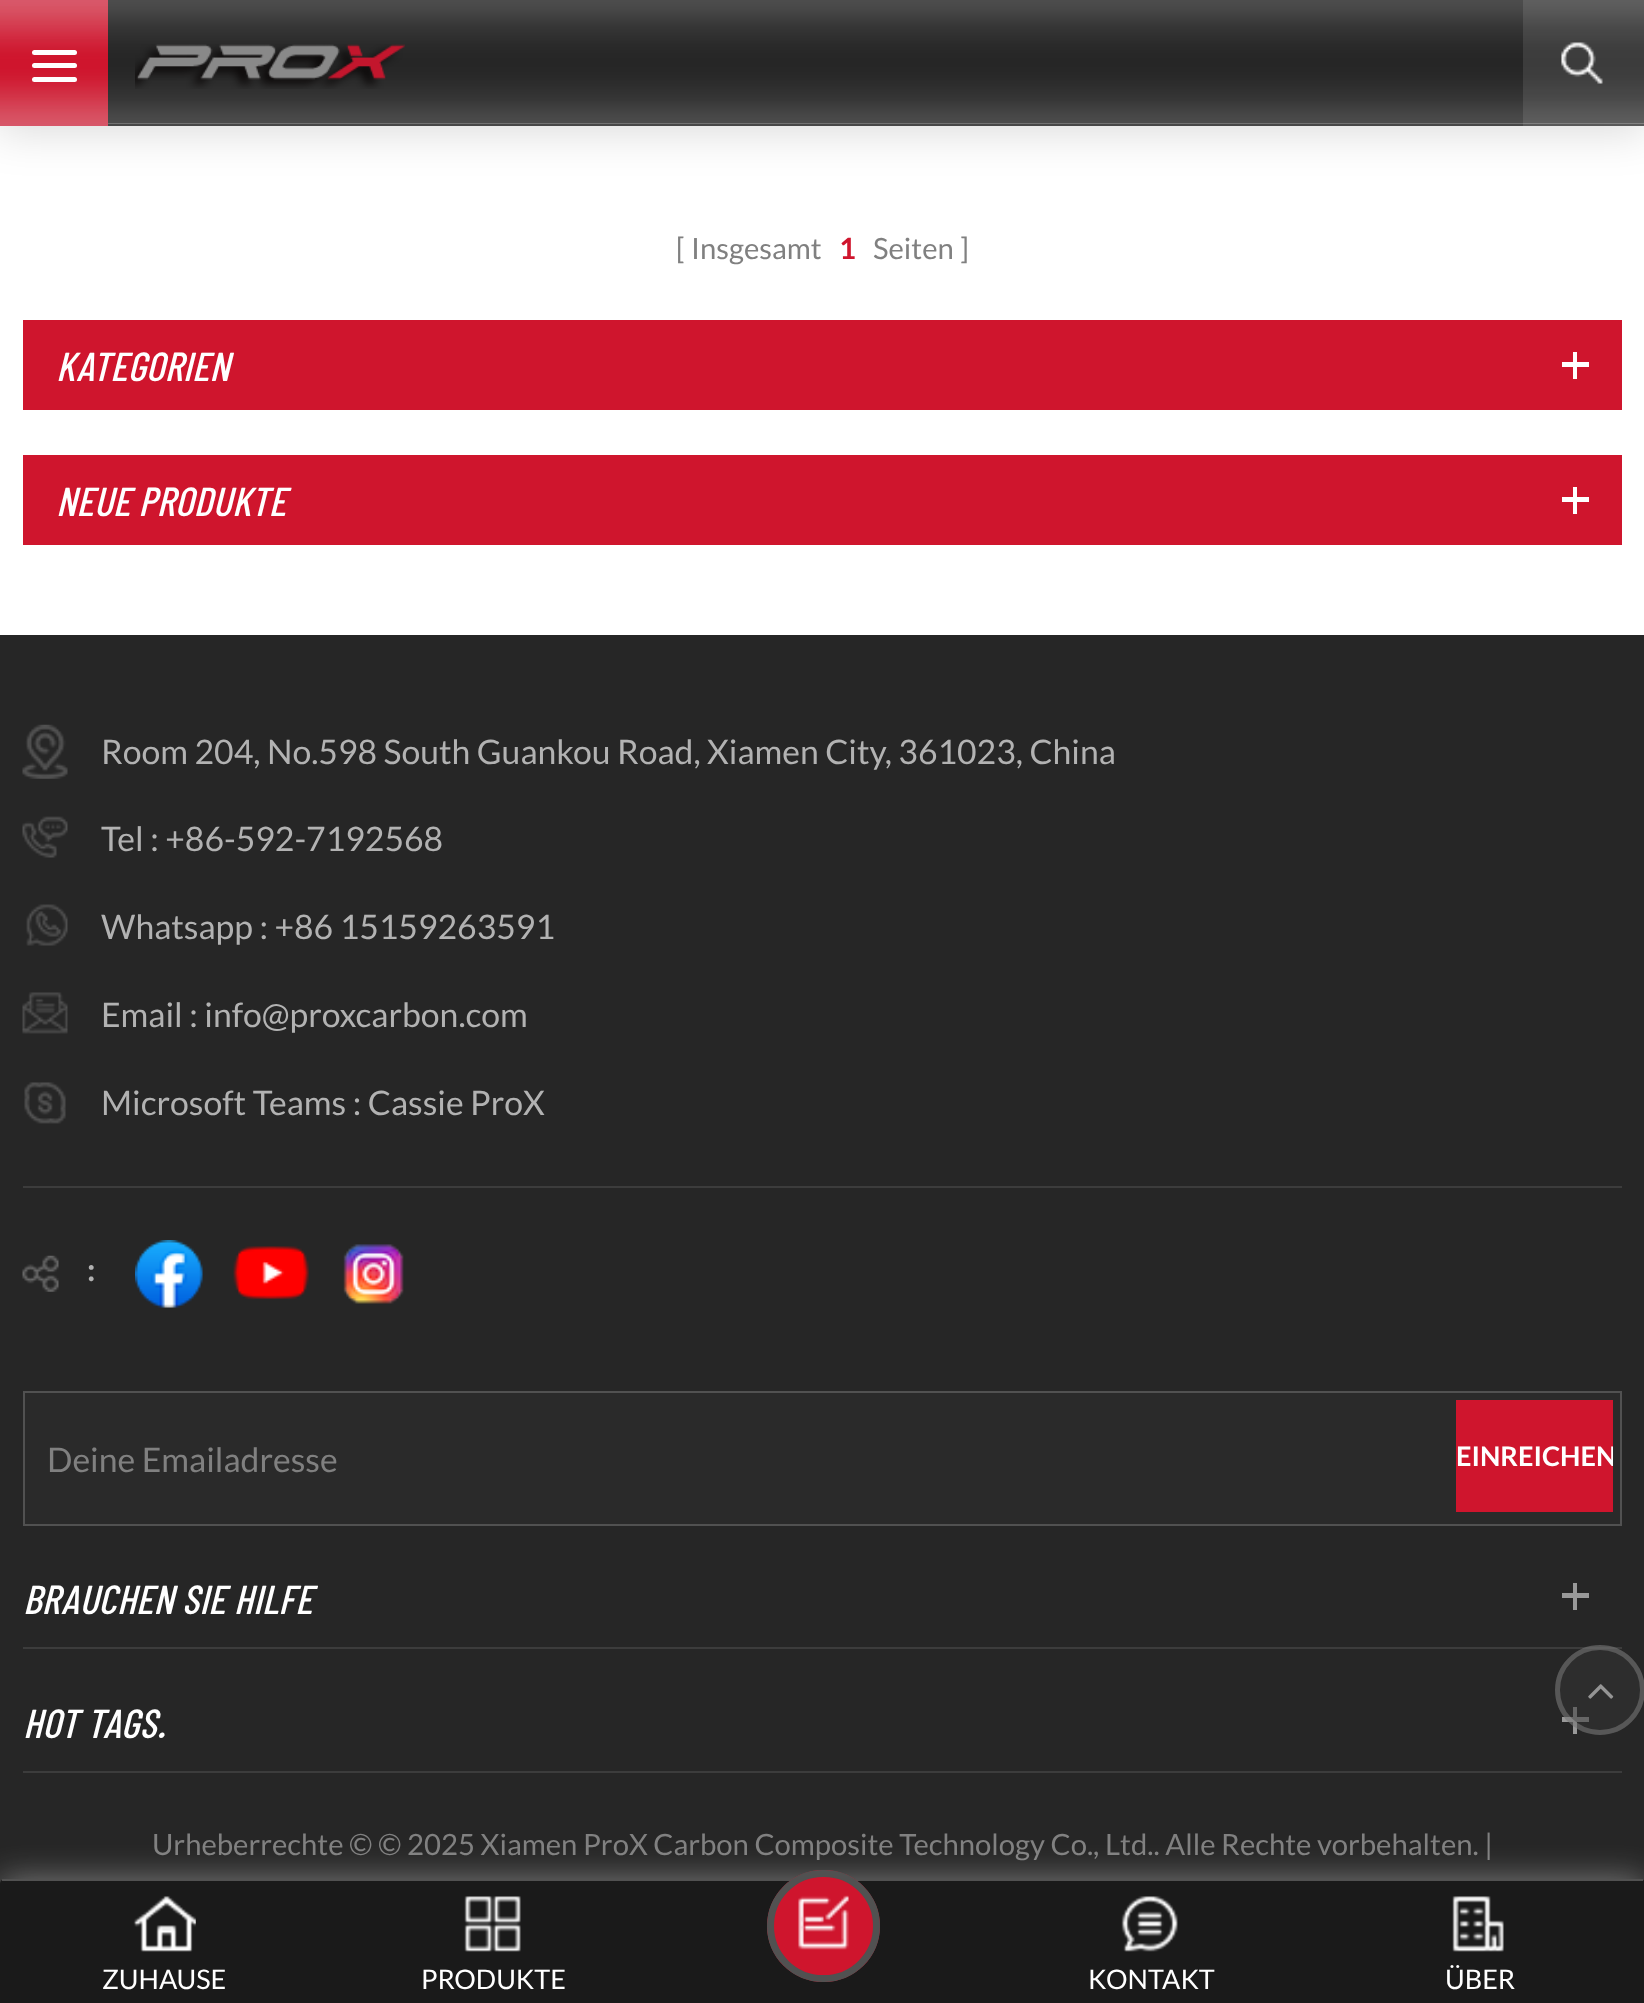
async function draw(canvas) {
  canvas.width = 1644;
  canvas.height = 2003;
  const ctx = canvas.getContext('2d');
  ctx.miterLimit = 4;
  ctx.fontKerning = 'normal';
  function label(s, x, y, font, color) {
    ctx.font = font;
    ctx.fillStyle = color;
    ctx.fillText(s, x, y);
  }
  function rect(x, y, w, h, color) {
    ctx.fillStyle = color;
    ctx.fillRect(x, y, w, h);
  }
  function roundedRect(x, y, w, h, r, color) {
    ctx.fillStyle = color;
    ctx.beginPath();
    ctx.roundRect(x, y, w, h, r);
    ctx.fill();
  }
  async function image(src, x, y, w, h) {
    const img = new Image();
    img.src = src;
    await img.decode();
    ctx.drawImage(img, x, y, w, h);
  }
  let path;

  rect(0, 0, 1644, 2003, '#fff');
  ctx.fillStyle = '#00000026';
  ctx.filter = 'blur(22.5px)';
  ctx.beginPath();
  ctx.rect(-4, -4, 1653, 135);
  ctx.fill();
  ctx.filter = 'none';
  rect(108, 124, 1536, 2, '#474747');
  await image('assets/img1.png', 108, 0, 1536, 124);
  await image('assets/img2.png', 0, 0, 108, 126);
  roundedRect(32, 63, 45, 5, 2.5, '#fff');
  roundedRect(32, 50, 45, 5, 2.5, '#fff');
  roundedRect(32, 77, 45, 5, 2.5, '#fff');
  await image('assets/img3.png', 135, 44, 270, 45);
  rect(1523, 0, 121, 126, '#ffffff1a');
  await image('assets/img4.png', 1561, 42, 42, 42);
  label('[', 676, 259, '29.25px Lato', '#808080');
  label('Insgesamt', 691, 259, '29.25px Lato', '#808080');
  label('1', 839, 259, 'bold 29.25px Lato', '#cf152d');
  label('Seiten', 873, 259, '29.25px Lato', '#808080');
  label(']', 960, 259, '29.25px Lato', '#808080');
  rect(23, 320, 1599, 90, '#cf152d');
  label('KATEGORIEN', 56, 381, 'italic 500 40.5px Barlow Condensed', '#fff');
  rect(1562, 362, 27, 5, '#fff');
  rect(1573, 352, 4, 27, '#fff');
  rect(23, 455, 1599, 90, '#cf152d');
  label('NEUE PRODUKTE', 56, 516, 'italic 500 40.5px Barlow Condensed', '#fff');
  rect(1562, 497, 27, 5, '#fff');
  rect(1573, 487, 4, 27, '#fff');
  rect(0, 635, 1644, 1249, '#262626');
  await image('assets/img5.png', 22, 724, 46, 55);
  label('Room 204, No.598 South Guankou Road, Xiamen City, 361023, China', 101, 764, '33.75px Lato', '#b2b2b2');
  await image('assets/img6.png', 22, 816, 46, 42);
  label('Tel : +86-592-7192568', 101, 851, '33.75px Lato', '#b2b2b2');
  await image('assets/img7.png', 26, 904, 42, 42);
  label('Whatsapp : +86 15159263591', 101, 939, '33.75px Lato', '#b2b2b2');
  await image('assets/img8.png', 22, 992, 46, 42);
  label('Email : info@proxcarbon.com', 101, 1027, '33.75px Lato', '#b2b2b2');
  await image('assets/img9.png', 24, 1082, 42, 42);
  label('Microsoft Teams : Cassie ProX', 101, 1115, '33.75px Lato', '#b2b2b2');
  rect(23, 1186, 1599, 2, '#3c3c3c');
  await image('assets/img10.png', 22, 1255, 37, 37);
  label(':', 87, 1281, 'bold 32px Lato', '#b2b2b2');
  await image('assets/img11.png', 135, 1240, 68, 68);
  await image('assets/img12.png', 233, 1246, 76, 54);
  await image('assets/img13.png', 343, 1244, 61, 60);
  ctx.fillStyle = '#2a2a2a';
  ctx.beginPath();
  ctx.rect(24, 1392, 1597, 133);
  ctx.fill();
  ctx.strokeStyle = '#515151';
  ctx.lineWidth = 2;
  ctx.stroke();
  label('Deine Emailadresse', 47, 1472, '33.75px Lato', '#808080');
  rect(1456, 1400, 157, 112, '#cf152d');
  ctx.save();
  ctx.beginPath();
  ctx.rect(1456, 1400, 157, 112);
  ctx.clip();
  label('EINREICHEN', 1456, 1466, 'bold 27px Lato', '#fff');
  ctx.restore();
  rect(23, 1647, 1599, 2, '#3c3c3c');
  label('BRAUCHEN SIE HILFE', 23, 1614, 'italic 500 40.5px Barlow Condensed', '#fff');
  rect(1562, 1593, 27, 5, '#999');
  rect(1573, 1583, 4, 27, '#999');
  rect(23, 1771, 1599, 2, '#3c3c3c');
  label('HOT TAGS.', 23, 1738, 'italic 500 40.5px Barlow Condensed', '#fff');
  rect(1562, 1717, 27, 5, '#999');
  rect(1573, 1707, 4, 27, '#999');
  label('Urheberrechte © © 2025 Xiamen ProX Carbon Composite Technology Co., Ltd.. Alle Rechte vorbehalten. |', 152, 1855, '29.25px Lato', '#808080');
  ctx.fillStyle = '#33333380';
  ctx.beginPath();
  ctx.arc(1600, 1690, 45, 0, 2 * Math.PI);
  ctx.fill();
  ctx.beginPath();
  ctx.arc(1600, 1690, 42.5, 0, 2 * Math.PI);
  ctx.strokeStyle = '#ffffff33';
  ctx.lineWidth = 5;
  ctx.stroke();
  await image('assets/img14.png', 1588, 1684, 26, 15);
  ctx.fillStyle = '#ffffff66';
  ctx.filter = 'blur(17px)';
  ctx.beginPath();
  ctx.roundRect(0, 1879, 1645, 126, 5);
  ctx.fill();
  ctx.filter = 'none';
  ctx.fillStyle = '#1a1a1a';
  path = new Path2D('M5 1879H1640C1643 1879 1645 1881 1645 1884V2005H0V1884C0 1881 2 1879 5 1879Z');
  ctx.fill(path);
  rect(2, 1879, 1641, 2, '#515151');
  roundedRect(767, 1870, 113, 112, 56, '#cf152d');
  await image('assets/img15.png', 798, 1895, 51, 55);
  ctx.beginPath();
  ctx.roundRect(770.5, 1873.5, 106, 105, 52.5);
  ctx.strokeStyle = '#515151';
  ctx.lineWidth = 7;
  ctx.stroke();
  await image('assets/img16.png', 133, 1896, 63, 56);
  label('ZUHAUSE', 102, 1989, '27px Lato', '#fff');
  await image('assets/img17.png', 464, 1896, 57, 56);
  label('PRODUKTE', 421, 1989, '27px Lato', '#fff');
  await image('assets/img18.png', 1121, 1896, 57, 56);
  label('KONTAKT', 1088, 1989, '27px Lato', '#fff');
  await image('assets/img19.png', 1452, 1896, 52, 56);
  label('ÜBER', 1445, 1989, '27px Lato', '#fff');
}

draw(document.querySelector('canvas'));
